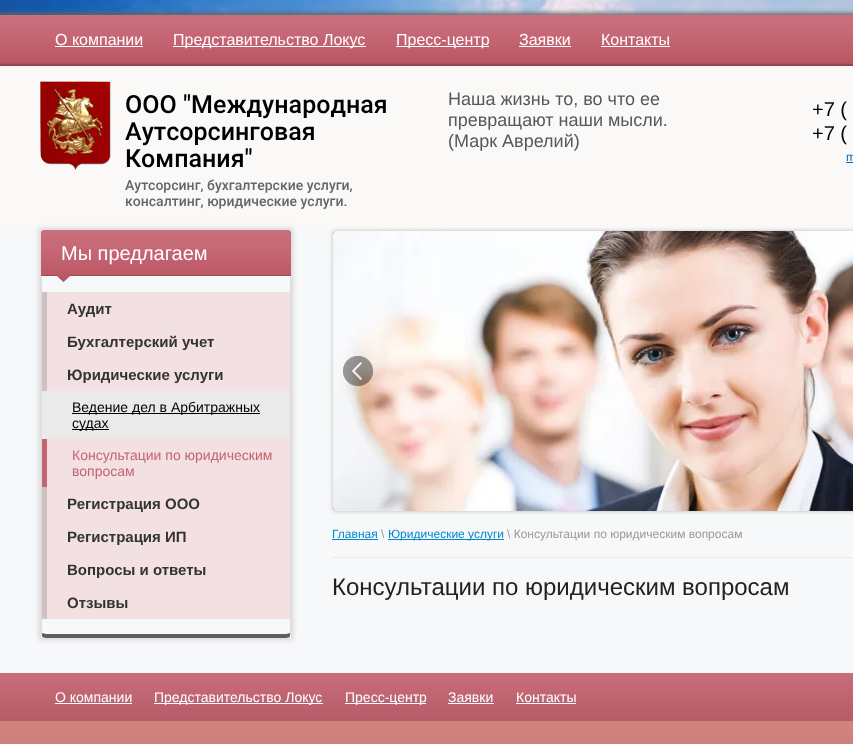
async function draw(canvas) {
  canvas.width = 853;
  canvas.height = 744;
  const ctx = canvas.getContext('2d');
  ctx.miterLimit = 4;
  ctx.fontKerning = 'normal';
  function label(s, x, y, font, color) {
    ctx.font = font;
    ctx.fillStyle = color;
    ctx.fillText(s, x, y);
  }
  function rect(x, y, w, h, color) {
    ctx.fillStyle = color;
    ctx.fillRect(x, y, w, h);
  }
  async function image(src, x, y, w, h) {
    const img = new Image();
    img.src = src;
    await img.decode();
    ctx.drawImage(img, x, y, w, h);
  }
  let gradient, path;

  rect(0, 0, 853, 744, '#fff');
  await image('assets/img1.png', 0, 0, 853, 15);
  ctx.fillStyle = '#656362';
  ctx.filter = 'blur(2.5px)';
  ctx.beginPath();
  ctx.rect(-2, 13, 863, 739);
  ctx.fill();
  ctx.filter = 'none';
  rect(0, 66, 853, 163, '#faf9f8');
  await image('assets/img2.png', 0, 15, 853, 51);
  label('О компании', 55, 45, '16px Liberation Sans', '#fff');
  rect(55, 46, 88, 1, '#fff');
  rect(173, 46, 193, 1, '#fff');
  label('Представительство Локус', 173, 45, '16px Liberation Sans', '#fff');
  rect(396, 46, 93, 1, '#fff');
  label('Пресс-центр', 396, 45, '16px Liberation Sans', '#fff');
  label('Заявки', 519, 45, '16px Liberation Sans', '#fff');
  rect(519, 46, 52, 1, '#fff');
  label('Контакты', 601, 45, '16px Liberation Sans', '#fff');
  rect(601, 46, 69, 1, '#fff');
  await image('assets/img3.png', 40, 81, 71, 89);
  label('ООО "Международная', 125, 113, '500 25px Roboto', '#000');
  label('Аутсорсинговая', 125, 140, '500 25px Roboto', '#000');
  label('Компания"', 125, 167, '500 25px Roboto', '#000');
  label('Аутсорсинг, бухгалтерские услуги,', 125, 190, '500 14px Roboto', '#666');
  label('консалтинг, юридические услуги.', 125, 206, '500 14px Roboto', '#666');
  label('Наша жизнь то, во что ее', 448, 105, '18px Liberation Sans', '#585858');
  label('превращают наши мысли.', 448, 126, '18px Liberation Sans', '#585858');
  label('(Марк Аврелий)', 448, 147, '18px Liberation Sans', '#585858');
  label('+7 (', 812, 116, '20px Liberation Sans', '#000');
  label('+7 (', 812, 140, '20px Liberation Sans', '#000');
  label('m', 846, 161, '12px Liberation Sans', '#0067c6');
  rect(846, 162, 7, 1, '#0067c6');
  rect(0, 229, 853, 444, '#f7f8fa');
  ctx.save();
  path = new Path2D('M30 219H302V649H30ZM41 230H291V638H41Z');
  ctx.clip(path, 'evenodd');
  ctx.fillStyle = '#d6d5d6';
  ctx.filter = 'blur(2.5px)';
  ctx.beginPath();
  ctx.rect(39, 228, 254, 412);
  ctx.fill();
  ctx.filter = 'none';
  ctx.restore();
  await image('assets/img4.png', 41, 230, 250, 46);
  label('Мы предлагаем', 61, 260, '20px Liberation Sans', '#fff');
  await image('assets/img5.png', 57, 275, 13, 7);
  ctx.fillStyle = '#ddd';
  path = new Path2D('M291 277H290V633V636L291 633Z');
  ctx.fill(path);
  ctx.fillStyle = '#5e5e5e';
  path = new Path2D('M46 638H286C288 638 290 637 290 636V633L286 634H46L42 633V636C42 637 44 638 46 638Z');
  ctx.fill(path);
  ctx.fillStyle = '#ddd';
  path = new Path2D('M41 277H42V633V636L41 633Z');
  ctx.fill(path);
  rect(47, 292, 243, 99, '#f3e0e3');
  rect(42, 292, 5, 99, '#cfc0c2');
  label('Аудит', 67, 314, 'bold 15px Liberation Sans', '#333');
  label('Бухгалтерский учет', 67, 347, 'bold 15px Liberation Sans', '#333');
  label('Юридические услуги', 67, 380, 'bold 15px Liberation Sans', '#333');
  rect(42, 391, 248, 48, '#eaeaea');
  rect(72, 413, 188, 1, '#000');
  label('Ведение дел в Арбитражных', 72, 412, '14px Liberation Sans', '#000');
  rect(72, 429, 37, 1, '#000');
  label('судах', 72, 428, '14px Liberation Sans', '#000');
  rect(47, 439, 243, 180, '#f3e0e3');
  rect(42, 439, 5, 48, '#c46371');
  label('Консультации по юридическим', 72, 460, '14px Liberation Sans', '#c46371');
  label('вопросам', 72, 476, '14px Liberation Sans', '#c46371');
  rect(42, 487, 5, 132, '#cfc0c2');
  label('Регистрация ООО', 67, 509, 'bold 15px Liberation Sans', '#333');
  label('Регистрация ИП', 67, 542, 'bold 15px Liberation Sans', '#333');
  label('Вопросы и ответы', 67, 575, 'bold 15px Liberation Sans', '#333');
  label('Отзывы', 67, 608, 'bold 15px Liberation Sans', '#333');
  ctx.fillStyle = '#e1e2e2';
  ctx.filter = 'blur(1.5px)';
  ctx.beginPath();
  ctx.roundRect(331, 229, 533, 284, 6);
  ctx.fill();
  ctx.filter = 'none';
  ctx.beginPath();
  ctx.roundRect(332.5, 230.5, 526, 281, 4.5);
  ctx.strokeStyle = '#ddd';
  ctx.stroke();
  await image('assets/img7.png', 333, 232, 1, 278);
  await image('assets/img6.png', 333, 231, 520, 280);
  await image('assets/img8.png', 343, 356, 30, 30);
  label('Главная', 332, 538, '12px Liberation Sans', '#08c');
  rect(332, 539, 46, 1, '#08c');
  label('\\', 381, 538, '12px Liberation Sans', '#999');
  rect(388, 539, 116, 1, '#08c');
  label('Юридические услуги', 388, 538, '12px Liberation Sans', '#08c');
  label('\\ Консультации по юридическим вопросам', 507, 538, '12px Liberation Sans', '#999');
  rect(332, 557, 521, 1, '#eaeaea');
  label('Консультации по юридическим вопросам', 332, 595, '24px Liberation Sans', '#222');
  gradient = ctx.createLinearGradient(512, 721, 512, 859);
  gradient.addColorStop(0, '#d1847d');
  gradient.addColorStop(1, '#bc6f6c');
  ctx.fillStyle = gradient;
  ctx.fillRect(0, 721, 853, 23);
  gradient = ctx.createLinearGradient(512, 673, 512, 721);
  gradient.addColorStop(0, '#d1847d');
  gradient.addColorStop(0, '#c86d7a');
  gradient.addColorStop(1, '#b65c69');
  ctx.fillStyle = gradient;
  ctx.fillRect(0, 673, 853, 48);
  label('О компании', 55, 702, '14px Liberation Sans', '#fff');
  rect(55, 703, 77, 1, '#fff');
  rect(154, 703, 169, 1, '#fff');
  label('Представительство Локус', 154, 702, '14px Liberation Sans', '#fff');
  rect(345, 703, 81, 1, '#fff');
  label('Пресс-центр', 345, 702, '14px Liberation Sans', '#fff');
  label('Заявки', 448, 702, '14px Liberation Sans', '#fff');
  rect(448, 703, 46, 1, '#fff');
  label('Контакты', 516, 702, '14px Liberation Sans', '#fff');
  rect(516, 703, 60, 1, '#fff');
}

draw(document.querySelector('canvas'));
